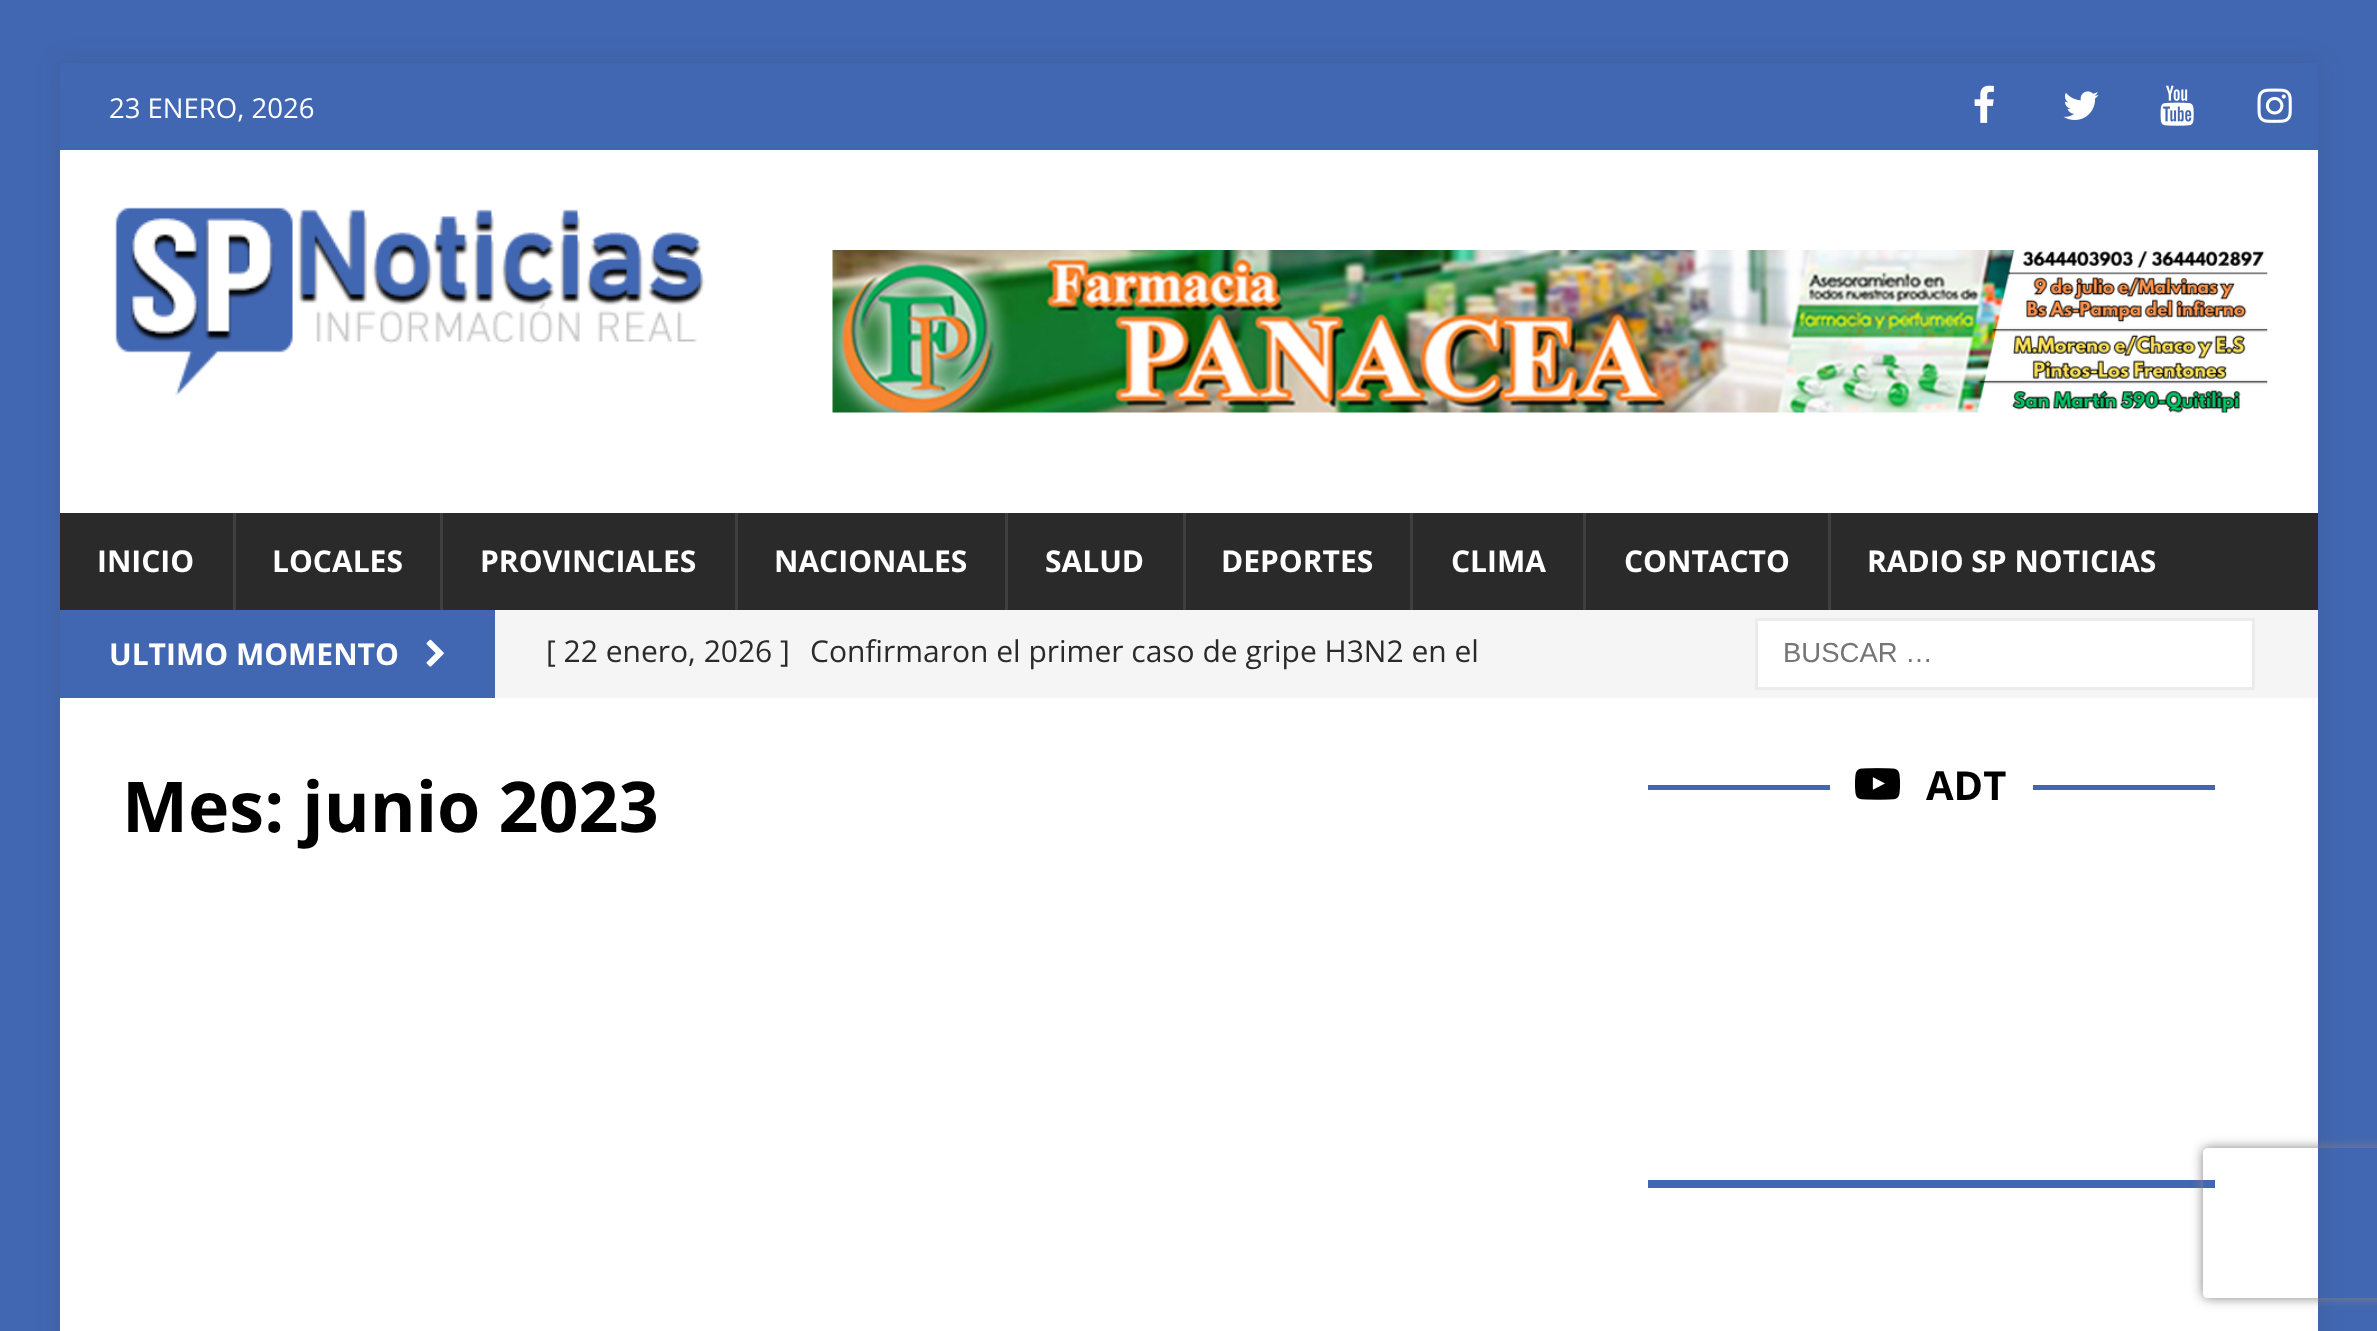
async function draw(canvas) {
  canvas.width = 2377;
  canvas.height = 1331;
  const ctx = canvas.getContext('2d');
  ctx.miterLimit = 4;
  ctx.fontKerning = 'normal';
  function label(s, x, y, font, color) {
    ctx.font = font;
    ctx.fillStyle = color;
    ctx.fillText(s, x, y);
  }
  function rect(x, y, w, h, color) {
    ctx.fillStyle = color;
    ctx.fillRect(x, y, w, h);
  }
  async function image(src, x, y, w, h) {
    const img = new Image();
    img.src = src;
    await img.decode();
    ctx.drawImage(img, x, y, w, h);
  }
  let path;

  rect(0, 0, 2377, 1331, '#4267b2');
  ctx.fillStyle = '#3232322b';
  ctx.filter = 'blur(12.5px)';
  ctx.beginPath();
  ctx.rect(60, 63, 2258, 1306);
  ctx.fill();
  ctx.filter = 'none';
  rect(60, 63, 2258, 87, '#4267b2');
  label('23 ENERO, 2026', 109, 118, '27.5px Open Sans', '#fff');
  await image('assets/img1.png', 1974, 85, 20, 38);
  await image('assets/img2.png', 2063, 91, 36, 29);
  await image('assets/img3.png', 2160, 85, 34, 41);
  await image('assets/img4.png', 2257, 88, 35, 35);
  rect(60, 150, 2258, 363, '#fff');
  await image('assets/img5.png', 115, 207, 590, 189);
  await image('assets/img6.png', 832, 250, 1436, 163);
  rect(60, 513, 2258, 97, '#2a2a2a');
  label('INICIO', 97, 572, 'bold 30px Open Sans', '#fff');
  rect(233, 513, 3, 97, '#3f3f3f');
  label('LOCALES', 272, 572, 'bold 30px Open Sans', '#fff');
  rect(440, 513, 3, 97, '#3f3f3f');
  label('PROVINCIALES', 480, 572, 'bold 30px Open Sans', '#fff');
  rect(735, 513, 3, 97, '#3f3f3f');
  label('NACIONALES', 774, 572, 'bold 30px Open Sans', '#fff');
  rect(1005, 513, 3, 97, '#3f3f3f');
  label('SALUD', 1045, 572, 'bold 30px Open Sans', '#fff');
  rect(1183, 513, 3, 97, '#3f3f3f');
  label('DEPORTES', 1221, 572, 'bold 30px Open Sans', '#fff');
  rect(1410, 513, 3, 97, '#3f3f3f');
  label('CLIMA', 1451, 572, 'bold 30px Open Sans', '#fff');
  rect(1583, 513, 3, 97, '#3f3f3f');
  label('CONTACTO', 1624, 572, 'bold 30px Open Sans', '#fff');
  rect(1828, 513, 3, 97, '#3f3f3f');
  label('RADIO SP NOTICIAS', 1867, 572, 'bold 30px Open Sans', '#fff');
  rect(495, 610, 1823, 88, '#f5f5f5');
  rect(60, 610, 435, 88, '#4267b2');
  label('ULTIMO MOMENTO', 109, 665, 'bold 30px Open Sans', '#fff');
  await image('assets/img7.png', 426, 639, 18, 28);
  label('[ 22 enero, 2026 ]', 546, 662, '30px Open Sans', '#2a2a2a');
  label('Confirmaron el primer caso de gripe H3N2 en el', 810, 662, '30px Open Sans', '#2a2a2a');
  ctx.fillStyle = '#fff';
  ctx.beginPath();
  ctx.rect(1756.5, 619.5, 497, 69);
  ctx.fill();
  ctx.strokeStyle = '#ebebeb';
  ctx.lineWidth = 3;
  ctx.stroke();
  label('BUSCAR …', 1783, 662, '27.5px Liberation Sans', '#757575');
  rect(60, 698, 2258, 633, '#fff');
  label('Mes: junio 2023', 122, 832, 'bold 70px Open Sans', '#000');
  rect(1648, 785, 567, 5, '#4267b2');
  rect(1830, 785, 203, 5, '#fff');
  await image('assets/img8.png', 1855, 768, 45, 32);
  label('ADT', 1926, 800, 'bold 40px Open Sans', '#000');
  rect(1648, 1180, 567, 8, '#4267b2');
  ctx.save();
  path = new Path2D('M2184 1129H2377V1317H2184ZM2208 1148H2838C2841 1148 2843 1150 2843 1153V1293C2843 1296 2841 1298 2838 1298H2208C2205 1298 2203 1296 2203 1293V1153C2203 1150 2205 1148 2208 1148Z');
  ctx.clip(path, 'evenodd');
  ctx.fillStyle = '#808080';
  ctx.filter = 'blur(6px)';
  ctx.beginPath();
  ctx.roundRect(2203, 1148, 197, 150, 5);
  ctx.fill();
  ctx.filter = 'none';
  ctx.restore();
}

draw(document.querySelector('canvas'));
